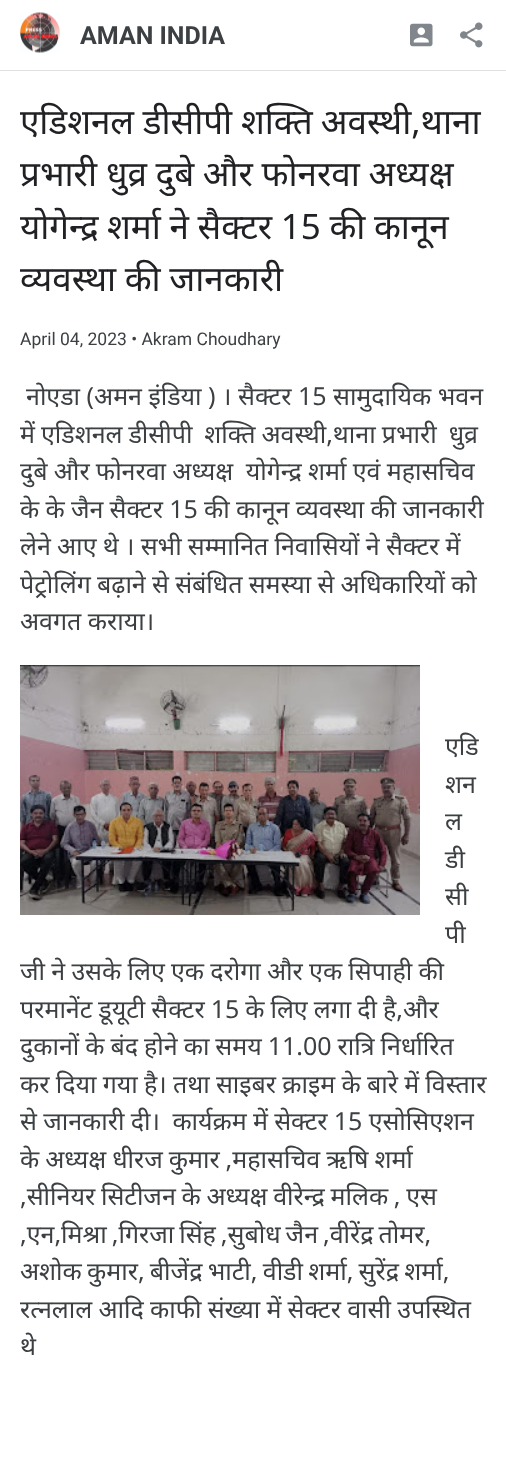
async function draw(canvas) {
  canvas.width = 506;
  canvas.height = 1463;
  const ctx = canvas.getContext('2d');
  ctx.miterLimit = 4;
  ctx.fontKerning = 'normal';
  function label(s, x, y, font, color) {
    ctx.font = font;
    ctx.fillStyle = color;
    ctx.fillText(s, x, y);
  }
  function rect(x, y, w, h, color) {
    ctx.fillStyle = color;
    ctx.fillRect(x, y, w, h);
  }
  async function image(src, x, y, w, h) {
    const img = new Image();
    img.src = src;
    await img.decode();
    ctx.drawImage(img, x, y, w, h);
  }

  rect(0, 0, 506, 1463, '#fff');
  rect(0, 70, 506, 1, '#e0e0e0');
  await image('assets/img1.png', 20, 12, 40, 41);
  label('AMAN INDIA', 80, 44, 'bold 25px Roboto', '#3c4043');
  await image('assets/img2.png', 410, 23, 23, 24);
  await image('assets/img3.png', 460, 22, 23, 26);
  ctx.wordSpacing = '-0.5px';
  label('एडिशनल डीसीपी', 20, 134, '35px Noto Sans', '#202124');
  ctx.wordSpacing = '-1px';
  label('शक्ति अवस्थी,थाना', 241, 134, '35px Noto Sans', '#202124');
  ctx.wordSpacing = '0px';
  label('प्रभारी', 20, 186, '35px Noto Sans', '#202124');
  ctx.wordSpacing = '-0.5px';
  label('धुव्र दुबे और फोनरवा अध्यक्ष', 106, 186, '35px Noto Sans', '#202124');
  ctx.save();
  ctx.beginPath();
  ctx.rect(20, 96, 466, 210);
  ctx.clip();
  label('योगेन्द्र शर्मा ने सैक्टर 15 की कानून', 20, 239, '35px Noto Sans', '#202124');
  ctx.restore();
  label('व्यवस्था की जानकारी', 20, 291, '35px Noto Sans', '#202124');
  ctx.wordSpacing = '0px';
  label('April 04, 2023 • Akram Choudhary', 20, 345, '17.5px Roboto', '#3c4043');
  label('नोएडा (अमन इंडिया ) । सैक्टर 15 सामुदायिक भवन', 26, 405, '25px Noto Sans', '#3c4043');
  ctx.wordSpacing = '-0.5px';
  label('में एडिशनल डीसीपी  शक्ति अवस्थी,थाना प्रभारी  धुव्र', 20, 443, '25px Noto Sans', '#3c4043');
  ctx.wordSpacing = '-0.25px';
  label('दुबे और फोनरवा अध्यक्ष  योगेन्द्र शर्मा एवं महासचिव', 20, 480, '25px Noto Sans', '#3c4043');
  label('के के जैन सैक्टर 15 की कानून व्यवस्था की जानकारी', 20, 518, '25px Noto Sans', '#3c4043');
  label('लेने आए थे । सभी सम्मानित निवासियों ने सैक्टर में', 20, 555, '25px Noto Sans', '#3c4043');
  label('पेट्रोलिंग बढ़ाने से संबंधित समस्या से अधिकारियों को', 20, 593, '25px Noto Sans', '#3c4043');
  ctx.wordSpacing = '0px';
  label('अवगत कराया।', 20, 630, '25px Noto Sans', '#3c4043');
  await image('assets/img4.png', 20, 665, 400, 250);
  label('एडि', 445, 755, '25px Noto Sans', '#3c4043');
  label('शन', 445, 793, '25px Noto Sans', '#3c4043');
  label('ल', 445, 830, '25px Noto Sans', '#3c4043');
  label('डी', 445, 868, '25px Noto Sans', '#3c4043');
  label('सी', 445, 905, '25px Noto Sans', '#3c4043');
  label('पी', 445, 943, '25px Noto Sans', '#3c4043');
  ctx.wordSpacing = '-0.25px';
  label('जी ने उसके लिए एक दरोगा और एक सिपाही की', 20, 980, '25px Noto Sans', '#3c4043');
  ctx.wordSpacing = '-0.5px';
  label('परमानेंट डूयूटी सैक्टर 15 के लिए लगा दी है,और', 20, 1018, '25px Noto Sans', '#3c4043');
  label('दुकानों के बंद होने का समय 11.00 रात्रि निर्धारित', 20, 1055, '25px Noto Sans', '#3c4043');
  ctx.wordSpacing = '-0.25px';
  label('कर दिया गया है। तथा साइबर क्राइम के बारे में विस्तार', 20, 1093, '25px Noto Sans', '#3c4043');
  label('से जानकारी दी।  कार्यक्रम में सेक्टर 15 एसोसिएशन', 20, 1130, '25px Noto Sans', '#3c4043');
  ctx.wordSpacing = '-0.5px';
  label('के अध्यक्ष धीरज कुमार ,महासचिव ऋषि शर्मा', 20, 1168, '25px Noto Sans', '#3c4043');
  ctx.wordSpacing = '-0.75px';
  label(',सीनियर सिटीजन के अध्यक्ष वीरेन्द्र मलिक , एस', 20, 1205, '25px Noto Sans', '#3c4043');
  ctx.wordSpacing = '-1.5px';
  label(',एन,मिश्रा ,गिरजा सिंह ,सुबोध जैन ,वीरेंद्र तोमर,', 20, 1243, '25px Noto Sans', '#3c4043');
  ctx.wordSpacing = '-1.25px';
  label('अशोक कुमार, बीजेंद्र भाटी, वीडी शर्मा, सुरेंद्र शर्मा,', 20, 1280, '25px Noto Sans', '#3c4043');
  ctx.wordSpacing = '-0.25px';
  label('रत्नलाल आदि काफी संख्या में सेक्टर वासी उपस्थित', 20, 1318, '25px Noto Sans', '#3c4043');
  ctx.wordSpacing = '0px';
  label('थे', 20, 1355, '25px Noto Sans', '#3c4043');
}

draw(document.querySelector('canvas'));
